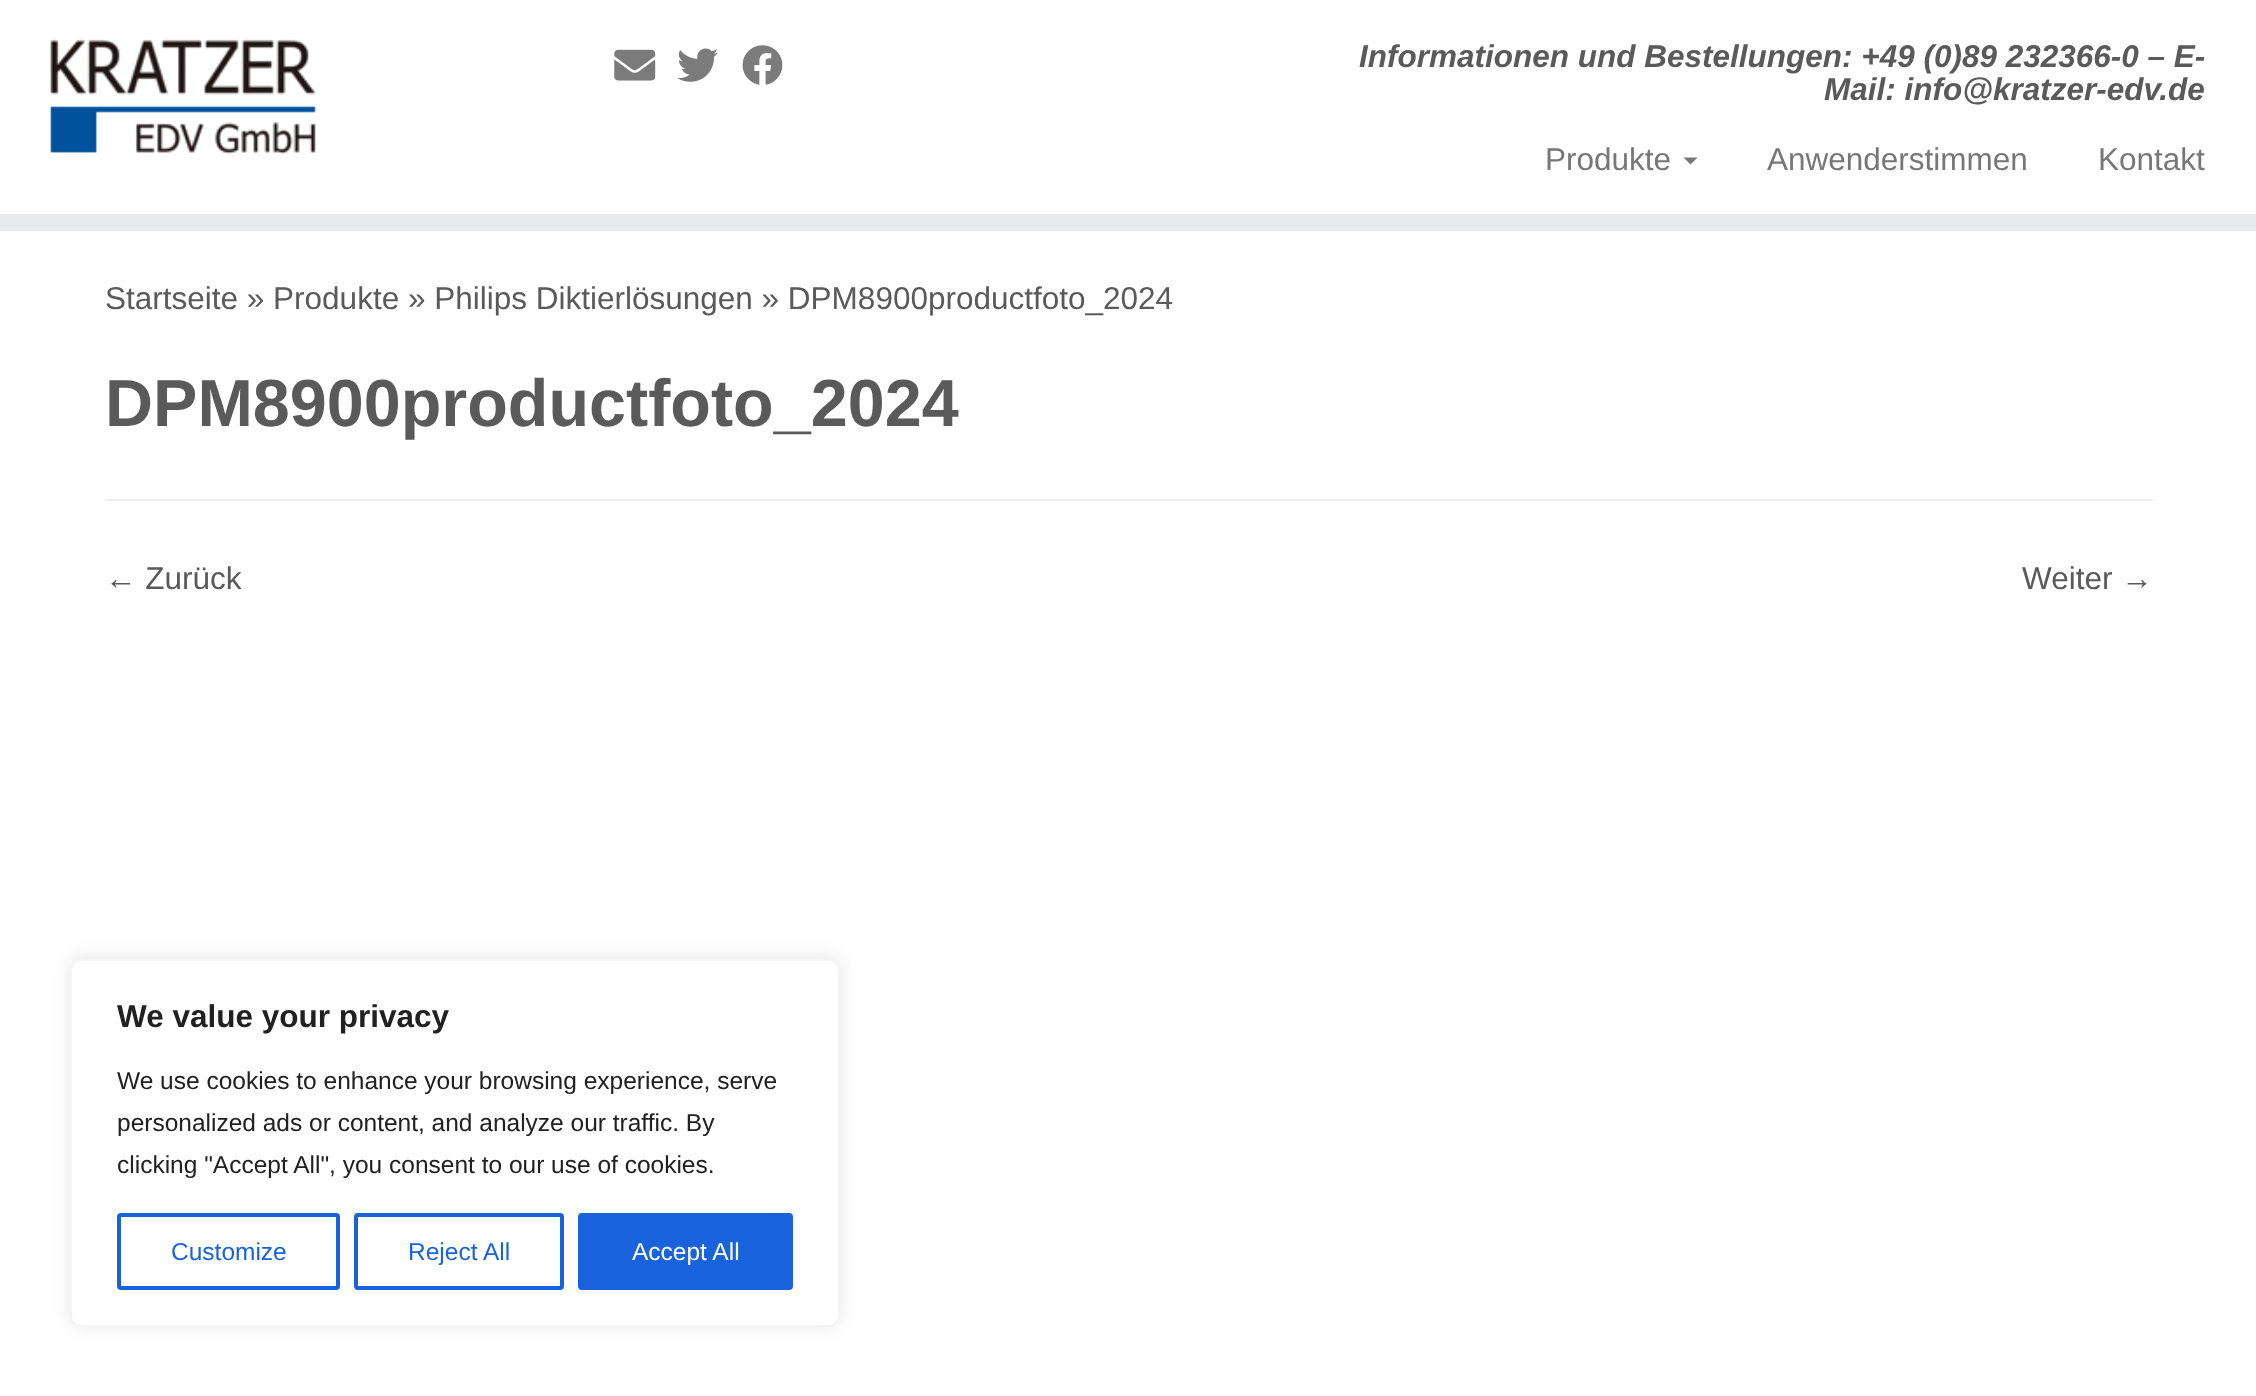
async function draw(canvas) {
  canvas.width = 2256;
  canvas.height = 1396;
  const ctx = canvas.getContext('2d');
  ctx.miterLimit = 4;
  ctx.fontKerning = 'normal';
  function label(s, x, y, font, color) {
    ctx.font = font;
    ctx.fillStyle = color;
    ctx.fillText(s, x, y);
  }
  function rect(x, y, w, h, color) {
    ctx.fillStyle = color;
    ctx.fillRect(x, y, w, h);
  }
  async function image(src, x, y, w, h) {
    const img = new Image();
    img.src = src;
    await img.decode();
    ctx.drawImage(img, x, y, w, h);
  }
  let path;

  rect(0, 0, 2256, 1396, '#fff');
  rect(0, 214, 2256, 17, '#e9eaee');
  await image('assets/img1.png', 50, 39, 266, 116);
  await image('assets/img2.png', 614, 49, 42, 32);
  await image('assets/img3.png', 677, 48, 41, 34);
  await image('assets/img4.png', 742, 45, 41, 40);
  label('Informationen und Bestellungen: +49 (0)89 232366-0 – E-', 1359, 67, 'italic bold 31.5px Liberation Sans', '#5a5a5a');
  label('Mail: info@kratzer-edv.de', 1824, 100, 'italic bold 31.5px Liberation Sans', '#5a5a5a');
  label('Produkte', 1545, 170, '31.5px Liberation Sans', '#777');
  path = new Path2D('M1683.5 157.5H1697.5L1690.5 164.5Z');
  ctx.fill(path);
  label('Anwenderstimmen', 1767, 170, '31.5px Liberation Sans', '#777');
  label('Kontakt', 2098, 170, '31.5px Liberation Sans', '#777');
  label('Startseite » Produkte » Philips Diktierlösungen » DPM8900productfoto_2024', 105, 309, '31.5px Liberation Sans', '#5a5a5a');
  label('DPM8900productfoto_2024', 105, 426, 'bold 66.5px Liberation Sans', '#5a5a5a');
  rect(105, 499, 2048, 2, '#eee');
  label('← Zurück', 105, 589, '31.5px Liberation Sans', '#5a5a5a');
  label('Weiter →', 2022, 589, '31.5px Liberation Sans', '#5a5a5a');
  ctx.fillStyle = '#acabab4d';
  ctx.filter = 'blur(9px)';
  ctx.beginPath();
  ctx.roundRect(70, 957, 770, 368, 11);
  ctx.fill();
  ctx.filter = 'none';
  ctx.fillStyle = '#fff';
  ctx.beginPath();
  ctx.roundRect(71, 960, 768, 366, 10);
  ctx.fill();
  ctx.strokeStyle = '#f4f4f4';
  ctx.lineWidth = 2;
  ctx.stroke();
  label('We value your privacy', 117, 1027, 'bold 31.5px Liberation Sans', '#212121');
  label('We use cookies to enhance your browsing experience, serve', 117, 1089, '24.5px Liberation Sans', '#212121');
  label('personalized ads or content, and analyze our traffic. By', 117, 1131, '24.5px Liberation Sans', '#212121');
  label('clicking "Accept All", you consent to our use of cookies.', 117, 1173, '24.5px Liberation Sans', '#212121');
  ctx.beginPath();
  ctx.roundRect(119, 1215, 219, 73, 2);
  ctx.strokeStyle = '#1863dc';
  ctx.lineWidth = 4;
  ctx.stroke();
  label('Customize', 171, 1260, '24.5px Liberation Sans', '#1863dc');
  ctx.beginPath();
  ctx.roundRect(356, 1215, 206, 73, 2);
  ctx.stroke();
  label('Reject All', 408, 1260, '24.5px Liberation Sans', '#1863dc');
  ctx.beginPath();
  ctx.roundRect(580, 1215, 211, 73, 2);
  ctx.fill();
  ctx.stroke();
  label('Accept All', 632, 1260, '24.5px Liberation Sans', '#fff');
}

draw(document.querySelector('canvas'));
